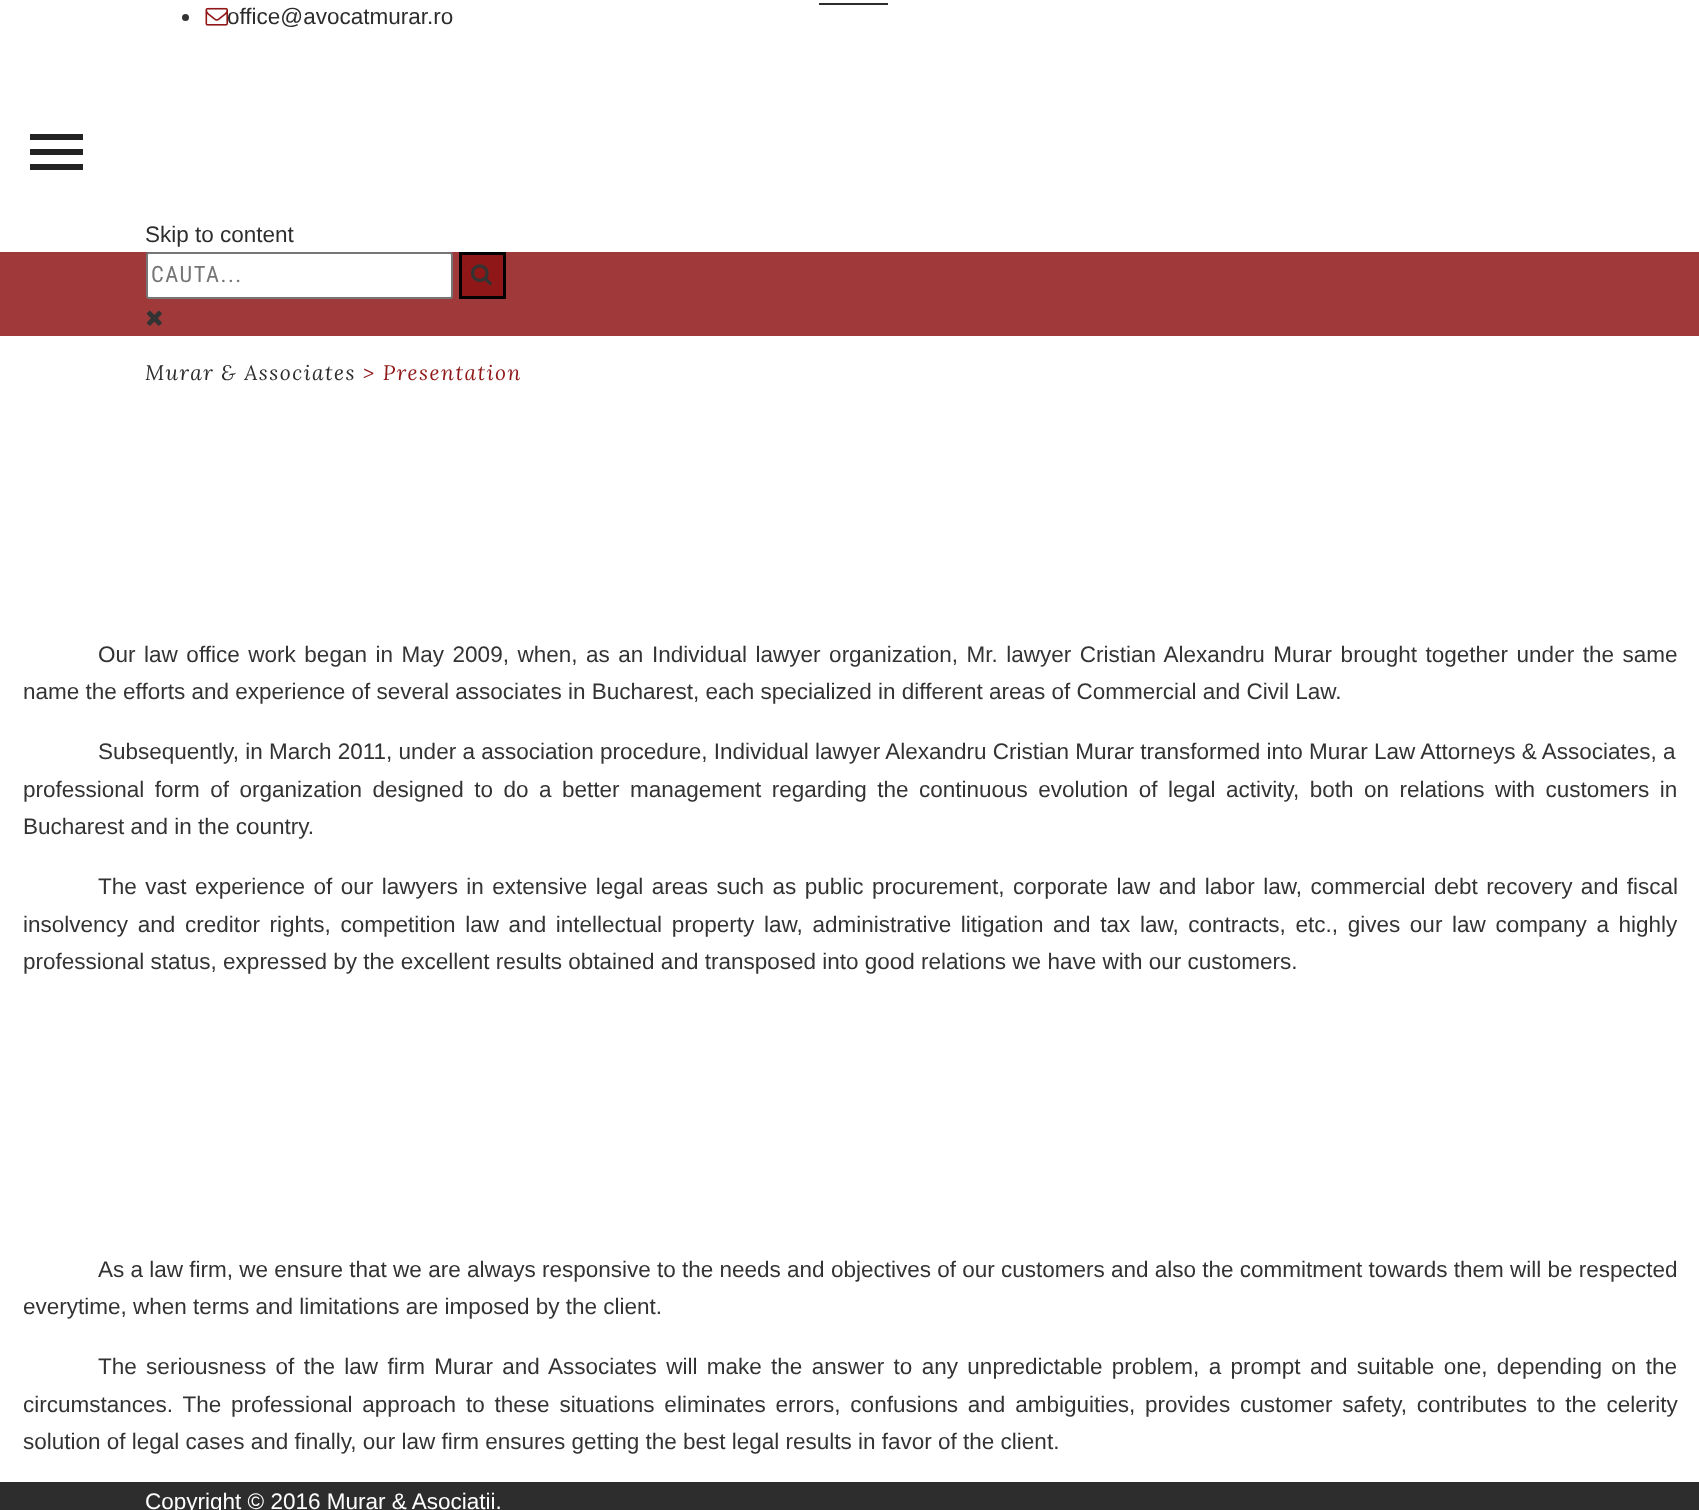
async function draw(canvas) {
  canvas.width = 1699
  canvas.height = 1510
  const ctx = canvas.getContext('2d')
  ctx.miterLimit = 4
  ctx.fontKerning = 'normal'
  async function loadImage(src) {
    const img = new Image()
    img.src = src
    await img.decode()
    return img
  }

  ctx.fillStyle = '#fff'
  ctx.fillRect(0, 0, 1699, 1510)
  ctx.fillStyle = '#2d2d2d'
  ctx.fillRect(819, 3, 69, 2)
  ctx.fillStyle = '#333'
  ctx.beginPath()
  ctx.arc(185.5, 17.5, 3.5, 0, 2 * Math.PI)
  ctx.fill()
  ctx.drawImage(await loadImage('image0.png'), 205, 7, 23, 19)
  ctx.font = '22.5px Liberation Sans'
  ctx.fillStyle = '#2d2d2d'
  ctx.fillText('office@avocatmurar.ro', 227, 24)
  ctx.save()
  ctx.beginPath()
  ctx.rect(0, 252, 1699, 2)
  ctx.clip()
  ctx.fillStyle = '#0000000f'
  ctx.filter = 'blur(1px)'
  ctx.beginPath()
  ctx.rect(0, 51, 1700, 203)
  ctx.fill()
  ctx.filter = 'none'
  ctx.restore()
  ctx.fillStyle = '#222'
  ctx.fillRect(30, 149, 53, 6)
  ctx.fillRect(30, 134, 53, 6)
  ctx.fillRect(30, 164, 53, 6)
  ctx.fillStyle = '#2d2d2d'
  ctx.fillText('Skip to content', 145, 242)
  ctx.fillStyle = '#8f1718d9'
  ctx.fillRect(0, 252, 1699, 84)
  ctx.fillStyle = '#fff'
  ctx.beginPath()
  ctx.roundRect(147, 253, 305, 45, 2)
  ctx.fill()
  ctx.strokeStyle = '#767676'
  ctx.lineWidth = 2
  ctx.stroke()
  ctx.letterSpacing = '1.5px'
  ctx.font = '22.5px Roboto Condensed'
  ctx.fillStyle = '#757575'
  ctx.fillText('CAUTA...', 151, 282)
  ctx.fillStyle = '#8f1718'
  ctx.beginPath()
  ctx.rect(460.5, 253.5, 44, 44)
  ctx.fill()
  ctx.strokeStyle = '#000'
  ctx.lineWidth = 3
  ctx.stroke()
  ctx.drawImage(await loadImage('image1.png'), 471, 264, 21, 22)
  ctx.drawImage(await loadImage('image2.png'), 146, 310, 16, 16)
  ctx.font = 'italic 21px Lora'
  ctx.fillStyle = '#2d2d2d'
  ctx.fillText('Murar & Associates', 145, 380)
  ctx.fillStyle = '#8f1718'
  ctx.fillText('> Presentation', 363, 380)
  ctx.letterSpacing = '0px'
  ctx.wordSpacing = '2.3px'
  ctx.font = '22.5px Liberation Sans'
  ctx.fillStyle = '#333'
  ctx.fillText('Our law office work began in May 2009, when, as an Individual lawyer organization, Mr. lawyer Cristian Alexandru Murar brought together under the same', 98, 662)
  ctx.wordSpacing = '0px'
  ctx.fillText('name the efforts and experience of several associates in Bucharest, each specialized in different areas of Commercial and Civil Law.', 23, 699)
  ctx.fillText('Subsequently, in March 2011, under a association procedure, Individual lawyer Alexandru Cristian Murar transformed into Murar Law Attorneys & Associates, a', 98, 759)
  ctx.wordSpacing = '4.2px'
  ctx.fillText('professional form of organization designed to do a better management regarding the continuous evolution of legal activity, both on relations with customers in', 23, 797)
  ctx.wordSpacing = '0px'
  ctx.fillText('Bucharest and in the country.', 23, 834)
  ctx.wordSpacing = '2.2px'
  ctx.fillText('The vast experience of our lawyers in extensive legal areas such as public procurement, corporate law and labor law, commercial debt recovery and fiscal', 98, 894)
  ctx.wordSpacing = '3.4px'
  ctx.fillText('insolvency and creditor rights, competition law and intellectual property law, administrative litigation and tax law, contracts, etc., gives our law company a highly', 23, 932)
  ctx.wordSpacing = '0px'
  ctx.fillText('professional status, expressed by the excellent results obtained and transposed into good relations we have with our customers.', 23, 969)
  ctx.fillText('As a law firm, we ensure that we are always responsive to the needs and objectives of our customers and also the commitment towards them will be respected', 98, 1277)
  ctx.fillText('everytime, when terms and limitations are imposed by the client.', 23, 1314)
  ctx.wordSpacing = '3.1px'
  ctx.fillText('The seriousness of the law firm Murar and Associates will make the answer to any unpredictable problem, a prompt and suitable one, depending on the', 98, 1374)
  ctx.wordSpacing = '3.6px'
  ctx.fillText('circumstances. The professional approach to these situations eliminates errors, confusions and ambiguities, provides customer safety, contributes to the celerity', 23, 1412)
  ctx.wordSpacing = '0px'
  ctx.fillText('solution of legal cases and finally, our law firm ensures getting the best legal results in favor of the client.', 23, 1449)
  ctx.fillStyle = '#2d2d2d'
  ctx.fillRect(0, 1482, 1699, 28)
  ctx.fillStyle = '#fff'
  ctx.fillText('Copyright © 2016 Murar & Asociatii.', 145, 1509)
}

draw(document.querySelector('canvas'))
